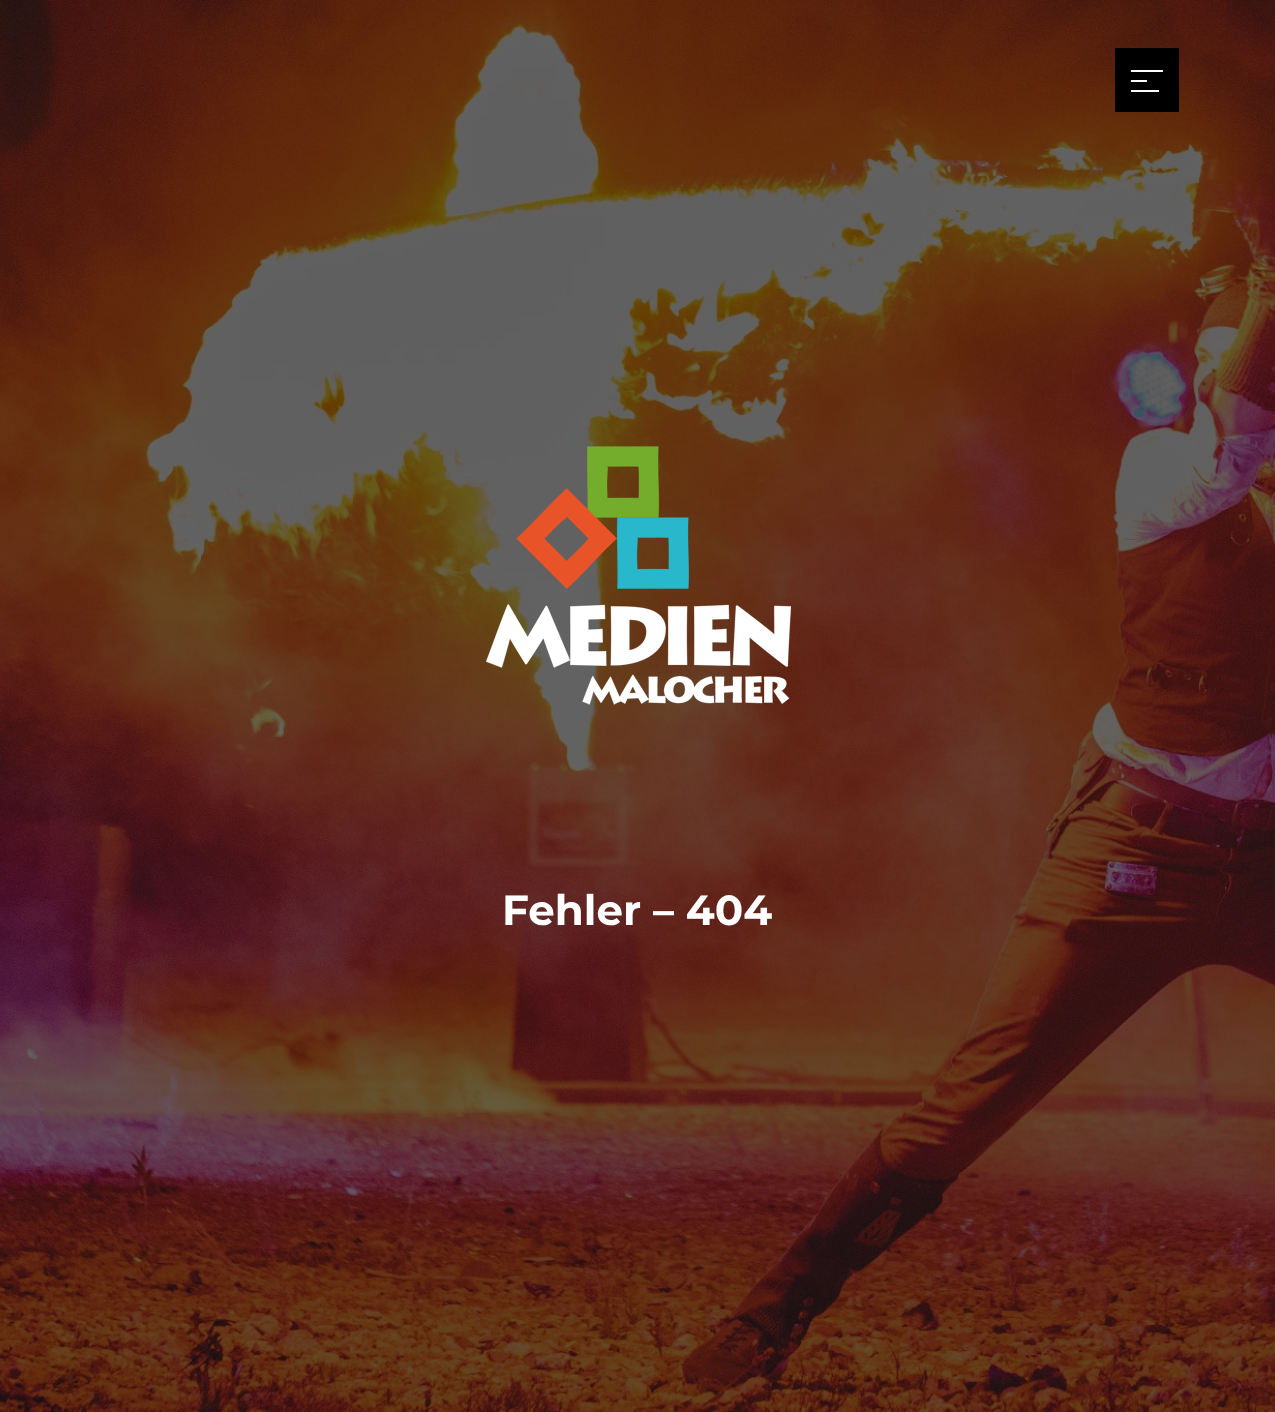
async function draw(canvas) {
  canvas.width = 1275
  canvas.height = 1412
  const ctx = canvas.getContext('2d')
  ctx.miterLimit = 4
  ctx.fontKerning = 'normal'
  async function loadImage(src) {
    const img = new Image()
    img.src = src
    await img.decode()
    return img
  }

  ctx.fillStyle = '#fff'
  ctx.fillRect(0, 0, 1275, 1412)
  ctx.drawImage(await loadImage('image0.png'), 0, 0, 1275, 1412)
  ctx.fillStyle = '#000'
  ctx.fillRect(1115, 48, 64, 64)
  ctx.fillStyle = '#fff'
  ctx.fillRect(1131, 70, 32, 2)
  ctx.fillRect(1131, 80, 16, 2)
  ctx.fillRect(1131, 90, 28, 2)
  ctx.drawImage(await loadImage('image1.png'), 486, 446, 305, 259)
  ctx.font = 'bold 42px Montserrat'
  ctx.fillText('Fehler – 404', 502, 925)
}

draw(document.querySelector('canvas'))
